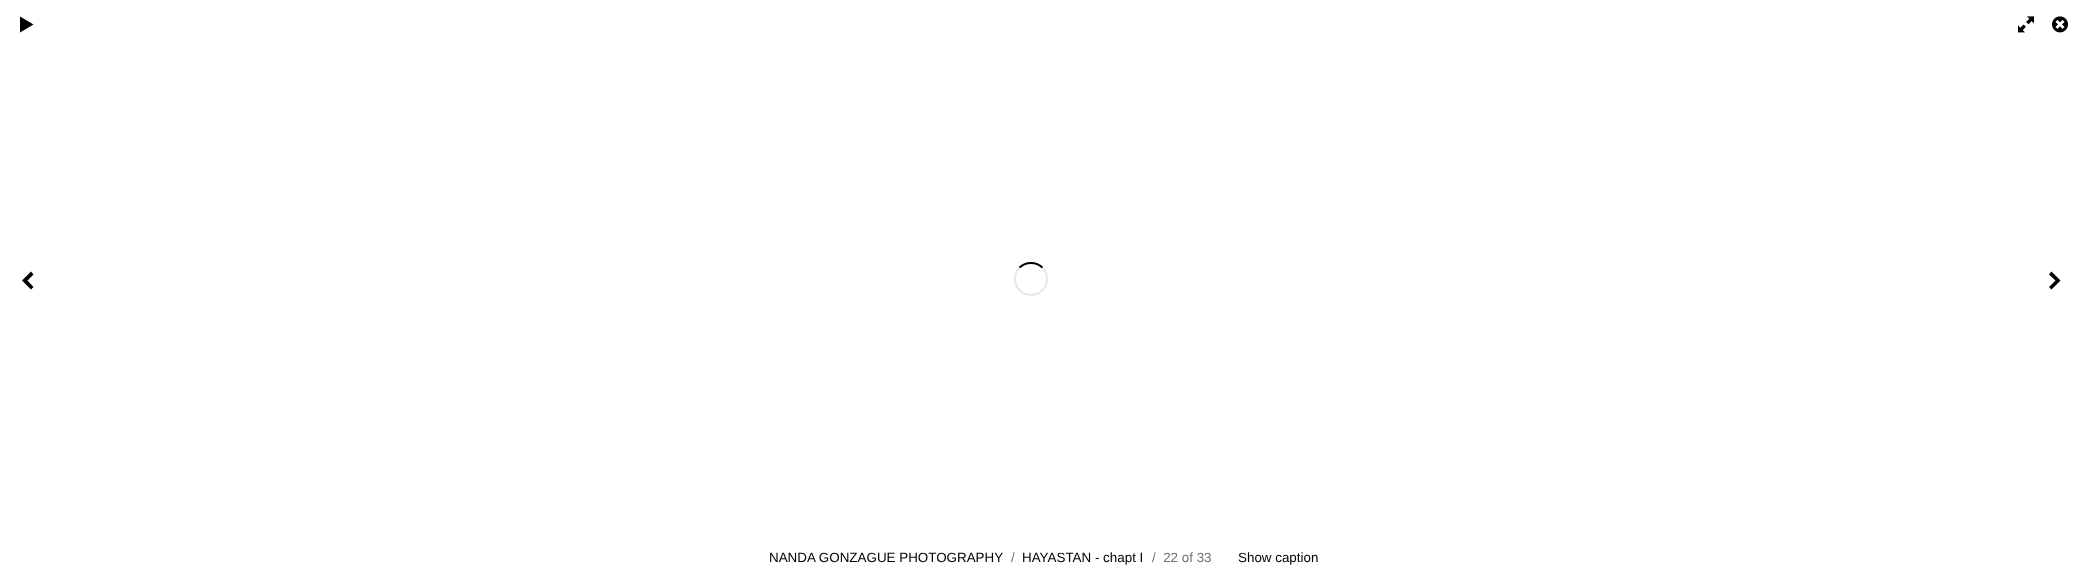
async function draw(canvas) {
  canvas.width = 2087
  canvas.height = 580
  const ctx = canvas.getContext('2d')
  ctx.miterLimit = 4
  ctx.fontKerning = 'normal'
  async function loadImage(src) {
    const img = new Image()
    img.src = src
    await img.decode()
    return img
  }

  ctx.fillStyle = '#fff'
  ctx.fillRect(0, 0, 2087, 580)
  ctx.fillStyle = '#000'
  ctx.beginPath()
  ctx.moveTo(20, 32.5)
  ctx.lineTo(20, 16.5)
  ctx.lineTo(33.5, 24.5)
  ctx.closePath()
  ctx.fill()
  ctx.drawImage(await loadImage('image0.png'), 2018, 16, 16, 17)
  ctx.drawImage(await loadImage('image1.png'), 2052, 16, 16, 17)
  ctx.beginPath()
  ctx.moveTo(22, 280.5)
  ctx.lineTo(31, 271.5)
  ctx.lineTo(33.5, 274.5)
  ctx.lineTo(27.5, 280.5)
  ctx.lineTo(33.5, 287)
  ctx.lineTo(31, 289.5)
  ctx.closePath()
  ctx.fill()
  ctx.beginPath()
  ctx.arc(1031, 279, 16, 0, 2 * Math.PI)
  ctx.strokeStyle = '#e6e6e6'
  ctx.lineWidth = 2
  ctx.stroke()
  ctx.beginPath()
  ctx.moveTo(1019.5, 267.5)
  ctx.bezierCurveTo(1026, 261.5, 1036, 261.5, 1042.5, 267.5)
  ctx.strokeStyle = '#000'
  ctx.stroke()
  ctx.beginPath()
  ctx.moveTo(2049, 287)
  ctx.lineTo(2055.5, 280.5)
  ctx.lineTo(2049, 274.5)
  ctx.lineTo(2051.5, 271.5)
  ctx.lineTo(2060.5, 280.5)
  ctx.lineTo(2051.5, 289.5)
  ctx.closePath()
  ctx.fill()
  ctx.font = '13.4px Liberation Sans'
  ctx.fillText('NANDA GONZAGUE PHOTOGRAPHY', 769, 562)
  ctx.fillStyle = '#707070'
  ctx.fillText('/', 1011, 562)
  ctx.fillStyle = '#000'
  ctx.fillText('HAYASTAN - chapt I', 1022, 562)
  ctx.fillStyle = '#707070'
  ctx.fillText('/  22 of 33', 1152, 562)
  ctx.fillStyle = '#000'
  ctx.fillText('Show caption', 1238, 562)
}

draw(document.querySelector('canvas'))
